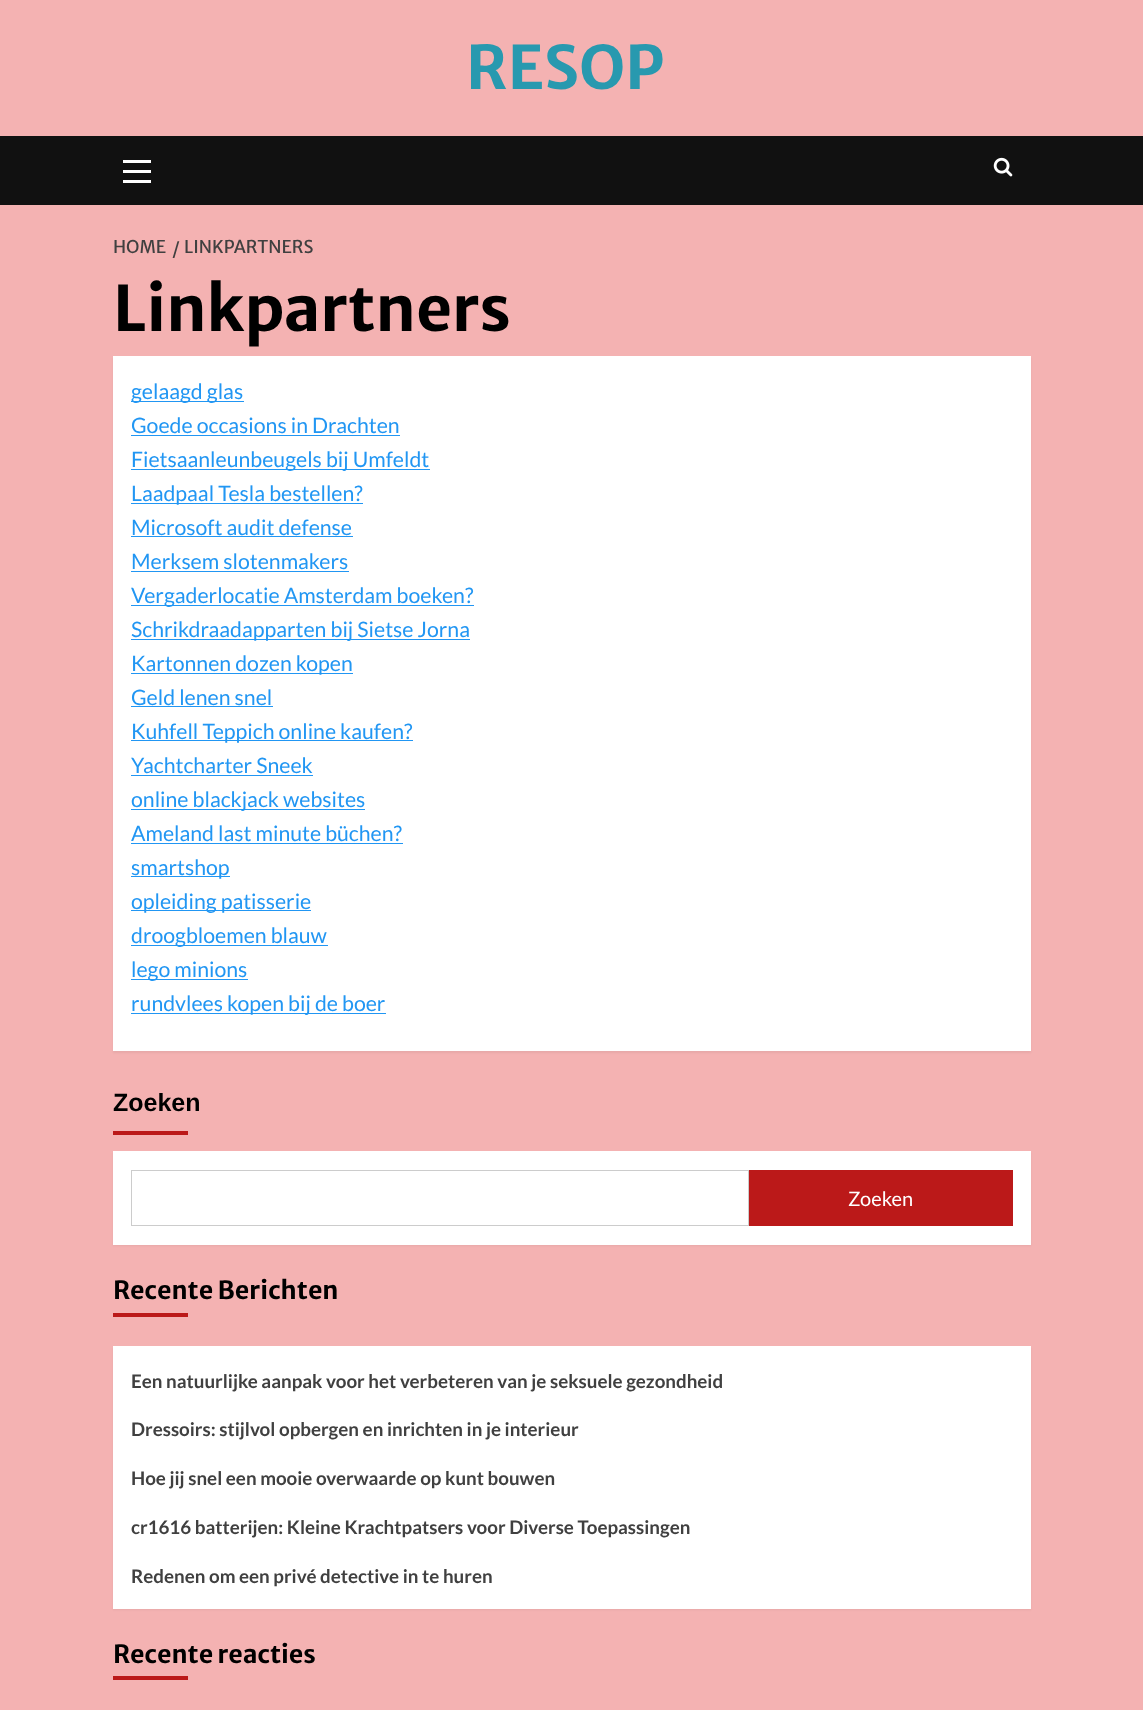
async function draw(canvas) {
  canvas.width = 1143
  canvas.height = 1710
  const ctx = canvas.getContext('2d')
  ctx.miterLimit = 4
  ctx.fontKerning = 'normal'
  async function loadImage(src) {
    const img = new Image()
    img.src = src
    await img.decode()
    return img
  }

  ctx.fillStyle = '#f4b2b2'
  ctx.fillRect(0, 0, 1143, 1710)
  ctx.font = 'bold 60px Merriweather Sans'
  ctx.fillStyle = '#2899af'
  ctx.fillText('RESOP', 466, 89)
  ctx.fillStyle = '#111'
  ctx.fillRect(0, 136, 1143, 69)
  ctx.fillStyle = '#fff'
  ctx.fillRect(123, 170, 28, 3)
  ctx.fillRect(123, 160, 28, 3)
  ctx.fillRect(123, 180, 28, 3)
  ctx.drawImage(await loadImage('image0.png'), 993, 157, 20, 20)
  ctx.font = '17.5px Merriweather Sans'
  ctx.fillStyle = '#404040'
  ctx.fillText('HOME', 113, 253)
  ctx.fillText('/', 172, 255)
  ctx.fillText('LINKPARTNERS', 184, 253)
  ctx.font = 'bold 62.5px Merriweather Sans'
  ctx.fillStyle = '#000'
  ctx.fillText('Linkpartners', 113, 331)
  ctx.fillStyle = '#0000000d'
  ctx.filter = 'blur(1px)'
  ctx.beginPath()
  ctx.rect(113, 358, 918, 695)
  ctx.fill()
  ctx.filter = 'none'
  ctx.fillStyle = '#fff'
  ctx.fillRect(113, 356, 918, 695)
  ctx.fillStyle = '#2196f3'
  ctx.fillRect(131, 401, 113, 1)
  ctx.font = '21.25px Lato'
  ctx.fillText('gelaagd glas', 131, 399)
  ctx.fillText('Goede occasions in Drachten', 131, 433)
  ctx.fillRect(131, 435, 269, 1)
  ctx.fillRect(131, 469, 299, 1)
  ctx.fillText('Fietsaanleunbeugels bij Umfeldt', 131, 467)
  ctx.fillRect(131, 503, 232, 1)
  ctx.fillText('Laadpaal Tesla bestellen?', 131, 501)
  ctx.fillText('Microsoft audit defense', 131, 535)
  ctx.fillRect(131, 536, 222, 1)
  ctx.fillText('Merksem slotenmakers', 131, 569)
  ctx.fillRect(131, 571, 218, 1)
  ctx.fillRect(131, 605, 343, 1)
  ctx.fillText('Vergaderlocatie Amsterdam boeken?', 131, 603)
  ctx.fillRect(131, 639, 339, 1)
  ctx.fillText('Schrikdraadapparten bij Sietse Jorna', 131, 637)
  ctx.fillRect(131, 673, 222, 1)
  ctx.fillText('Kartonnen dozen kopen', 131, 671)
  ctx.fillText('Geld lenen snel', 131, 705)
  ctx.fillRect(131, 706, 142, 1)
  ctx.fillRect(131, 740, 282, 1)
  ctx.fillText('Kuhfell Teppich online kaufen?', 131, 739)
  ctx.fillText('Yachtcharter Sneek', 131, 773)
  ctx.fillRect(131, 775, 182, 1)
  ctx.fillRect(131, 809, 234, 1)
  ctx.fillText('online blackjack websites', 131, 807)
  ctx.fillText('Ameland last minute büchen?', 131, 841)
  ctx.fillRect(131, 843, 272, 1)
  ctx.fillRect(131, 876, 99, 1)
  ctx.fillText('smartshop', 131, 875)
  ctx.fillRect(131, 910, 180, 1)
  ctx.fillText('opleiding patisserie', 131, 909)
  ctx.fillRect(131, 945, 197, 1)
  ctx.fillText('droogbloemen blauw', 131, 943)
  ctx.fillRect(131, 979, 117, 1)
  ctx.fillText('lego minions', 131, 977)
  ctx.fillRect(131, 1013, 255, 1)
  ctx.fillText('rundvlees kopen bij de boer', 131, 1011)
  ctx.font = 'bold 25px Liberation Sans'
  ctx.fillStyle = '#000'
  ctx.fillText('Zoeken', 113, 1111)
  ctx.fillStyle = '#bb1919'
  ctx.fillRect(113, 1131, 75, 4)
  ctx.fillStyle = '#0000000d'
  ctx.filter = 'blur(1px)'
  ctx.beginPath()
  ctx.rect(113, 1153, 918, 93)
  ctx.fill()
  ctx.filter = 'none'
  ctx.fillStyle = '#fff'
  ctx.fillRect(113, 1151, 918, 94)
  ctx.strokeStyle = '#ccc'
  ctx.strokeRect(131.5, 1170.5, 617, 55)
  ctx.fillStyle = '#bb1919'
  ctx.fillRect(749, 1170, 264, 56)
  ctx.font = '20px Lato'
  ctx.fillStyle = '#fff'
  ctx.fillText('Zoeken', 848, 1206)
  ctx.font = 'bold 25px Merriweather Sans'
  ctx.fillStyle = '#000'
  ctx.fillText('Recente Berichten', 113, 1299)
  ctx.fillStyle = '#bb1919'
  ctx.fillRect(113, 1313, 75, 4)
  ctx.fillStyle = '#0000000d'
  ctx.filter = 'blur(1px)'
  ctx.beginPath()
  ctx.rect(113, 1348, 918, 262)
  ctx.fill()
  ctx.filter = 'none'
  ctx.fillStyle = '#fff'
  ctx.fillRect(113, 1346, 918, 263)
  ctx.font = 'bold 18.75px Lato'
  ctx.fillStyle = '#404040'
  ctx.fillText('Een natuurlijke aanpak voor het verbeteren van je seksuele gezondheid', 131, 1388)
  ctx.fillText('Dressoirs: stijlvol opbergen en inrichten in je interieur', 131, 1436)
  ctx.fillText('Hoe jij snel een mooie overwaarde op kunt bouwen', 131, 1485)
  ctx.fillText('cr1616 batterijen: Kleine Krachtpatsers voor Diverse Toepassingen', 131, 1534)
  ctx.fillText('Redenen om een privé detective in te huren', 131, 1583)
  ctx.font = 'bold 25px Merriweather Sans'
  ctx.fillStyle = '#000'
  ctx.fillText('Recente reacties', 113, 1663)
  ctx.fillStyle = '#bb1919'
  ctx.fillRect(113, 1676, 75, 4)
}

draw(document.querySelector('canvas'))
